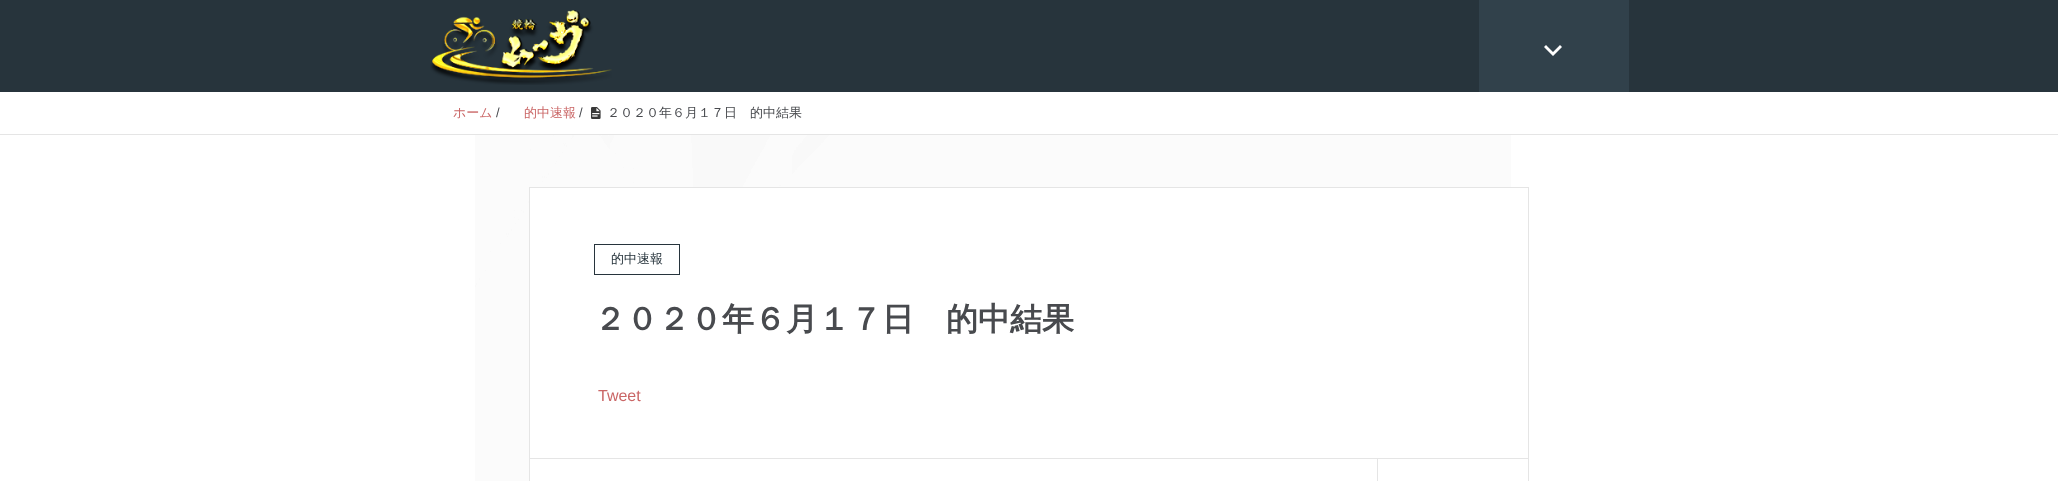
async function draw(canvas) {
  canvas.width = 2058
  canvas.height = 481
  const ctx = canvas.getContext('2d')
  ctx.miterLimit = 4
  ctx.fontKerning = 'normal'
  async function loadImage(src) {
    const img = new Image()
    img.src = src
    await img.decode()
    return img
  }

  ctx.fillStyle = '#fff'
  ctx.fillRect(0, 0, 2058, 481)
  ctx.drawImage(await loadImage('image0.png'), 475, 135, 1036, 346)
  ctx.fillStyle = '#27343c'
  ctx.fillRect(0, 0, 2058, 92)
  ctx.drawImage(await loadImage('image1.png'), 430, 10, 182, 75)
  ctx.fillStyle = '#31414b'
  ctx.fillRect(1479, 0, 150, 92)
  ctx.fillStyle = '#fff'
  ctx.beginPath()
  ctx.moveTo(1546, 45)
  ctx.lineTo(1553, 52)
  ctx.lineTo(1560, 45)
  ctx.lineTo(1562, 47)
  ctx.lineTo(1553, 56)
  ctx.lineTo(1544, 47)
  ctx.closePath()
  ctx.fill()
  ctx.fillStyle = '#e5e5e5'
  ctx.fillRect(0, 134, 2058, 1)
  ctx.font = '500 13px WenQuanYi Zen Hei'
  ctx.fillStyle = '#ca6666'
  ctx.fillText('ホーム', 453, 117)
  ctx.font = '13px Liberation Sans'
  ctx.fillStyle = '#484a4e'
  ctx.fillText('/', 496, 117)
  ctx.font = '500 13px WenQuanYi Zen Hei'
  ctx.fillStyle = '#ca6666'
  ctx.fillText('的中速報', 524, 117)
  ctx.font = '13px Liberation Sans'
  ctx.fillStyle = '#484a4e'
  ctx.fillText('/', 579, 117)
  ctx.drawImage(await loadImage('image2.png'), 591, 107, 10, 12)
  ctx.font = '500 13px WenQuanYi Zen Hei'
  ctx.fillText('２０２０年６月１７日　的中結果', 607, 117)
  ctx.fillStyle = '#fff'
  ctx.fillRect(530, 188, 981, 293)
  ctx.strokeStyle = '#e5e5e5'
  ctx.strokeRect(529.5, 187.5, 999, 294)
  ctx.fillStyle = '#e5e5e5'
  ctx.fillRect(530, 458, 998, 1)
  ctx.strokeStyle = '#27343c'
  ctx.strokeRect(594.5, 244.5, 85, 30)
  ctx.fillStyle = '#27343c'
  ctx.fillText('的中速報', 611, 263)
  ctx.font = 'bold 32px WenQuanYi Zen Hei'
  ctx.fillStyle = '#484a4e'
  ctx.fillText('２０２０年６月１７日　的中結果', 594, 330)
  ctx.font = '16px Liberation Sans'
  ctx.fillStyle = '#ca6666'
  ctx.fillText('Tweet', 598, 401)
  ctx.fillStyle = '#e5e5e5'
  ctx.fillRect(1377, 459, 1, 22)
}

draw(document.querySelector('canvas'))
